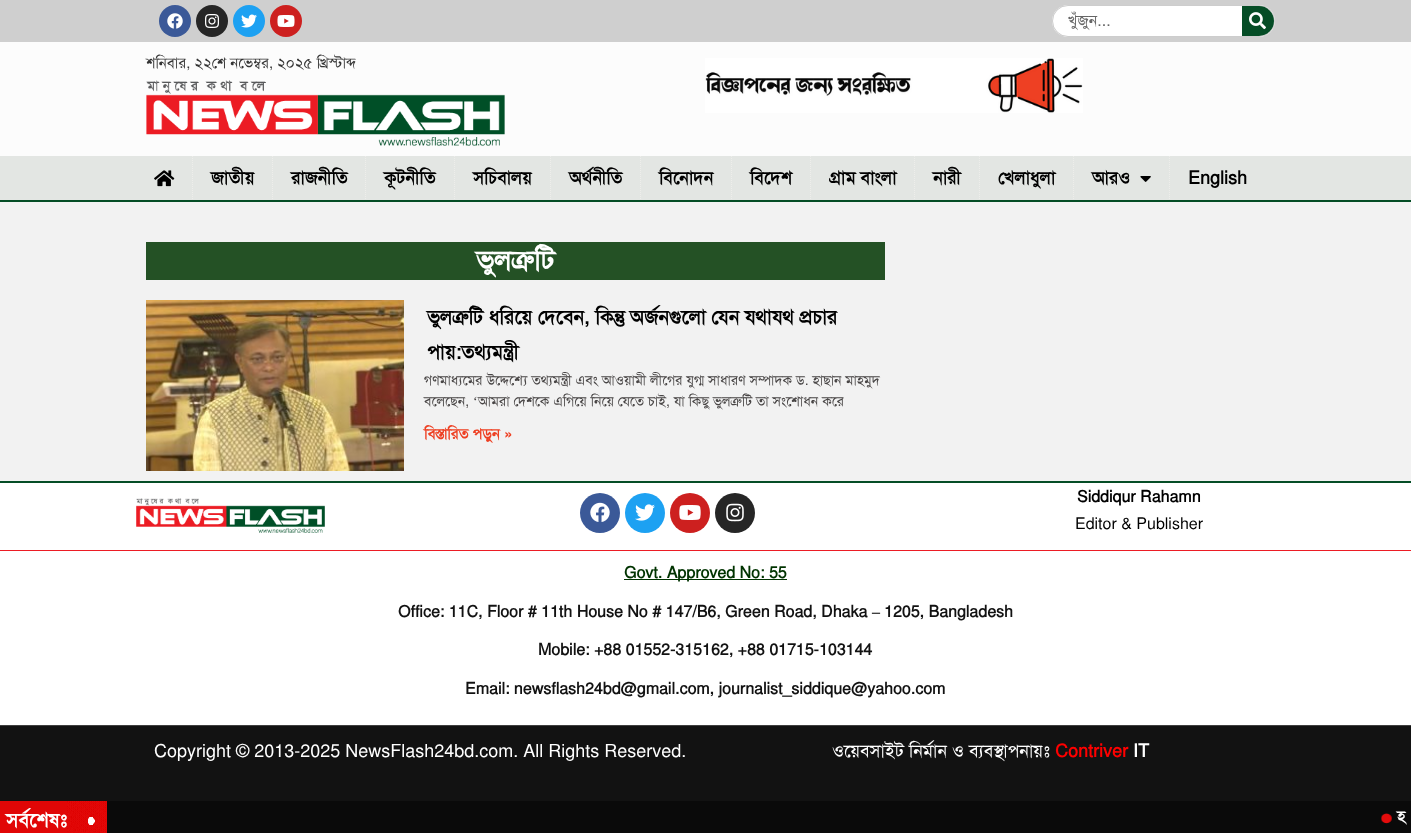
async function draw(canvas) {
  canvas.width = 1411
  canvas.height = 833
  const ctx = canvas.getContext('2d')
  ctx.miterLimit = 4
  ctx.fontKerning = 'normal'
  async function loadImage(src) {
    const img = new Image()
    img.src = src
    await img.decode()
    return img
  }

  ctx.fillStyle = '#f2f2f2'
  ctx.fillRect(0, 0, 1411, 833)
  ctx.fillStyle = '#cfcfcf'
  ctx.fillRect(0, 0, 1411, 42)
  ctx.fillStyle = '#3b5998'
  ctx.beginPath()
  ctx.arc(175, 21, 16, 0, 2 * Math.PI)
  ctx.fill()
  ctx.drawImage(await loadImage('image0.png'), 167, 13, 16, 16)
  ctx.fillStyle = '#262626'
  ctx.beginPath()
  ctx.arc(212, 21, 16, 0, 2 * Math.PI)
  ctx.fill()
  ctx.drawImage(await loadImage('image1.png'), 205, 14, 14, 14)
  ctx.fillStyle = '#1da1f2'
  ctx.beginPath()
  ctx.arc(249, 21, 16, 0, 2 * Math.PI)
  ctx.fill()
  ctx.drawImage(await loadImage('image2.png'), 241, 14, 16, 14)
  ctx.fillStyle = '#cd201f'
  ctx.beginPath()
  ctx.arc(286, 21, 16, 0, 2 * Math.PI)
  ctx.fill()
  ctx.drawImage(await loadImage('image3.png'), 277, 15, 18, 12)
  ctx.fillStyle = '#fff'
  ctx.beginPath()
  ctx.roundRect(1052, 5, 223, 32, 16)
  ctx.fill()
  ctx.beginPath()
  ctx.roundRect(1052.5, 5.5, 222, 31, 15.5)
  ctx.strokeStyle = '#06060633'
  ctx.stroke()
  ctx.save()
  ctx.beginPath()
  ctx.rect(1063, 11, 153, 21)
  ctx.clip()
  ctx.font = '16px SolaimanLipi'
  ctx.fillStyle = '#666'
  ctx.fillText('খুঁজুন...', 1068, 26)
  ctx.restore()
  ctx.fillStyle = '#054d26'
  ctx.beginPath()
  ctx.roundRect(1242, 6, 32, 30, [0, 15, 15, 0])
  ctx.fill()
  ctx.drawImage(await loadImage('image4.png'), 1249, 12, 17, 18)
  ctx.fillStyle = '#fcfcfc'
  ctx.fillRect(0, 42, 1411, 114)
  ctx.font = '15px SolaimanLipi'
  ctx.fillStyle = '#333'
  ctx.fillText('শনিবার, ২২শে নভেম্বর, ২০২৫ খ্রিস্টাব্দ', 146, 68)
  ctx.drawImage(await loadImage('image5.png'), 146, 80, 359, 66)
  ctx.drawImage(await loadImage('image6.png'), 705, 58, 378, 55)
  ctx.fillStyle = '#e3e6e3'
  ctx.fillRect(0, 156, 1411, 44)
  ctx.fillStyle = '#054d26'
  ctx.fillRect(0, 200, 1411, 2)
  ctx.drawImage(await loadImage('image7.png'), 154, 170, 21, 17)
  ctx.beginPath()
  ctx.moveTo(192.5, 156)
  ctx.lineTo(192.5, 200)
  ctx.strokeStyle = '#eeeeeb'
  ctx.setLineDash([1, 1])
  ctx.stroke()
  ctx.font = 'bold 18px SolaimanLipi'
  ctx.fillStyle = '#000'
  ctx.fillText('জাতীয়', 211, 184)
  ctx.beginPath()
  ctx.moveTo(272.5, 156)
  ctx.lineTo(272.5, 200)
  ctx.stroke()
  ctx.fillText('রাজনীতি', 291, 184)
  ctx.beginPath()
  ctx.moveTo(365.5, 156)
  ctx.lineTo(365.5, 200)
  ctx.stroke()
  ctx.fillText('কূটনীতি', 384, 184)
  ctx.beginPath()
  ctx.moveTo(454.5, 156)
  ctx.lineTo(454.5, 200)
  ctx.stroke()
  ctx.fillText('সচিবালয়', 473, 184)
  ctx.beginPath()
  ctx.moveTo(550.5, 156)
  ctx.lineTo(550.5, 200)
  ctx.stroke()
  ctx.fillText('অর্থনীতি', 569, 184)
  ctx.beginPath()
  ctx.moveTo(640.5, 156)
  ctx.lineTo(640.5, 200)
  ctx.stroke()
  ctx.fillText('বিনোদন', 659, 184)
  ctx.beginPath()
  ctx.moveTo(731.5, 156)
  ctx.lineTo(731.5, 200)
  ctx.stroke()
  ctx.fillText('বিদেশ', 750, 184)
  ctx.beginPath()
  ctx.moveTo(810.5, 156)
  ctx.lineTo(810.5, 200)
  ctx.stroke()
  ctx.fillText('গ্রাম বাংলা', 829, 184)
  ctx.beginPath()
  ctx.moveTo(914.5, 156)
  ctx.lineTo(914.5, 200)
  ctx.stroke()
  ctx.fillText('নারী', 933, 184)
  ctx.beginPath()
  ctx.moveTo(979.5, 156)
  ctx.lineTo(979.5, 200)
  ctx.stroke()
  ctx.fillText('খেলাধুলা', 998, 184)
  ctx.beginPath()
  ctx.moveTo(1073.5, 156)
  ctx.lineTo(1073.5, 200)
  ctx.stroke()
  ctx.fillText('আরও', 1092, 184)
  ctx.drawImage(await loadImage('image8.png'), 1140, 176, 11, 6)
  ctx.beginPath()
  ctx.moveTo(1169.5, 156)
  ctx.lineTo(1169.5, 200)
  ctx.stroke()
  ctx.fillText('English', 1188, 184)
  ctx.fillStyle = '#245125'
  ctx.fillRect(146, 242, 739, 38)
  ctx.font = 'bold 28px SolaimanLipi'
  ctx.fillStyle = '#fff'
  ctx.fillText('ভুলত্রুটি', 476, 270)
  ctx.drawImage(await loadImage('image9.png'), 146, 300, 258, 171)
  ctx.font = 'bold 20px SolaimanLipi'
  ctx.fillStyle = '#000'
  ctx.fillText('ভুলত্রুটি ধরিয়ে দেবেন, কিন্তু অর্জনগুলো যেন যথাযথ প্রচার', 427, 324)
  ctx.fillText('পায়:তথ্যমন্ত্রী', 427, 359)
  ctx.font = '14px SolaimanLipi'
  ctx.fillStyle = '#484545'
  ctx.fillText('গণমাধ্যমের উদ্দেশ্যে তথ্যমন্ত্রী এবং আওয়ামী লীগের যুগ্ম সাধারণ সম্পাদক ড. হাছান মাহমুদ', 424, 385)
  ctx.fillText('বলেছেন,', 424, 406)
  ctx.font = '14px Liberation Serif'
  ctx.fillText('‘', 473, 406)
  ctx.font = '14px SolaimanLipi'
  ctx.fillText('আমরা দেশকে এগিয়ে নিয়ে যেতে চাই, যা কিছু ভুলত্রুটি তা সংশোধন করে', 478, 406)
  ctx.font = 'bold 15px SolaimanLipi'
  ctx.fillStyle = '#ee4023'
  ctx.fillText('বিস্তারিত পড়ুন »', 424, 439)
  ctx.fillStyle = '#fff'
  ctx.fillRect(0, 483, 1411, 67)
  ctx.fillStyle = '#054d26'
  ctx.fillRect(0, 481, 1411, 2)
  ctx.drawImage(await loadImage('image10.png'), 136, 498, 189, 35)
  ctx.fillStyle = '#3b5998'
  ctx.beginPath()
  ctx.arc(600, 513, 20, 0, 2 * Math.PI)
  ctx.fill()
  ctx.drawImage(await loadImage('image11.png'), 590, 502, 20, 20)
  ctx.fillStyle = '#1da1f2'
  ctx.beginPath()
  ctx.arc(645, 513, 20, 0, 2 * Math.PI)
  ctx.fill()
  ctx.drawImage(await loadImage('image12.png'), 635, 504, 20, 17)
  ctx.fillStyle = '#cd201f'
  ctx.beginPath()
  ctx.arc(690, 513, 20, 0, 2 * Math.PI)
  ctx.fill()
  ctx.drawImage(await loadImage('image13.png'), 679, 505, 22, 15)
  ctx.fillStyle = '#262626'
  ctx.beginPath()
  ctx.arc(735, 513, 20, 0, 2 * Math.PI)
  ctx.fill()
  ctx.drawImage(await loadImage('image14.png'), 726, 503, 18, 19)
  ctx.font = 'bold 16px SolaimanLipi'
  ctx.fillStyle = '#000'
  ctx.fillText('Siddiqur Rahamn', 1077, 502)
  ctx.font = '16px SolaimanLipi'
  ctx.fillText('Editor & Publisher', 1075, 529)
  ctx.fillStyle = '#fff'
  ctx.fillRect(0, 551, 1411, 174)
  ctx.fillStyle = '#ec1c24'
  ctx.fillRect(0, 550, 1411, 1)
  ctx.fillStyle = '#030'
  ctx.fillRect(624, 579, 163, 1)
  ctx.font = 'bold 16px SolaimanLipi'
  ctx.fillText('Govt. Approved No: 55', 624, 578)
  ctx.fillStyle = '#121212'
  ctx.fillText('Office: 11C, Floor # 11th House No # 147/B6, Green Road, Dhaka', 398, 617)
  ctx.font = 'bold 16px Liberation Serif'
  ctx.fillText('–', 872, 617)
  ctx.font = 'bold 16px SolaimanLipi'
  ctx.fillText('1205, Bangladesh', 884, 617)
  ctx.fillText('Mobile: +88 01552-315162, +88 01715-103144', 538, 655)
  ctx.fillText('Email: newsflash24bd@gmail.com, journalist_siddique@yahoo.com', 465, 694)
  ctx.fillRect(0, 726, 1411, 75)
  ctx.fillStyle = '#3f3f3f'
  ctx.fillRect(0, 725, 1411, 1)
  ctx.font = '18px SolaimanLipi'
  ctx.fillStyle = '#fff'
  ctx.fillText('Copyright © 2013-2025 NewsFlash24bd.com. All Rights Reserved.', 154, 757)
  ctx.fillText('ওয়েবসাইট নির্মান ও ব্যবস্থাপনায়ঃ', 832, 757)
  ctx.font = 'bold 18px SolaimanLipi'
  ctx.fillStyle = '#f00'
  ctx.fillText('Contriver', 1055, 757)
  ctx.fillStyle = '#fff'
  ctx.fillText('IT', 1133, 757)
  ctx.fillStyle = '#0a0a0a'
  ctx.fillRect(107, 801, 1304, 32)
  ctx.fillStyle = '#e10606'
  ctx.fillRect(0, 801, 107, 32)
  ctx.drawImage(await loadImage('image15.png'), 67, 801, 39, 32)
  ctx.font = 'bold 20px SolaimanLipi'
  ctx.fillStyle = '#fff'
  ctx.fillText('সর্বশেষঃ', 6, 827)
  ctx.drawImage(await loadImage('image16.png'), 1381, 813, 11, 11)
  ctx.font = 'bold 16px SolaimanLipi'
  ctx.fillText('হ', 1397, 822)
}

draw(document.querySelector('canvas'))
